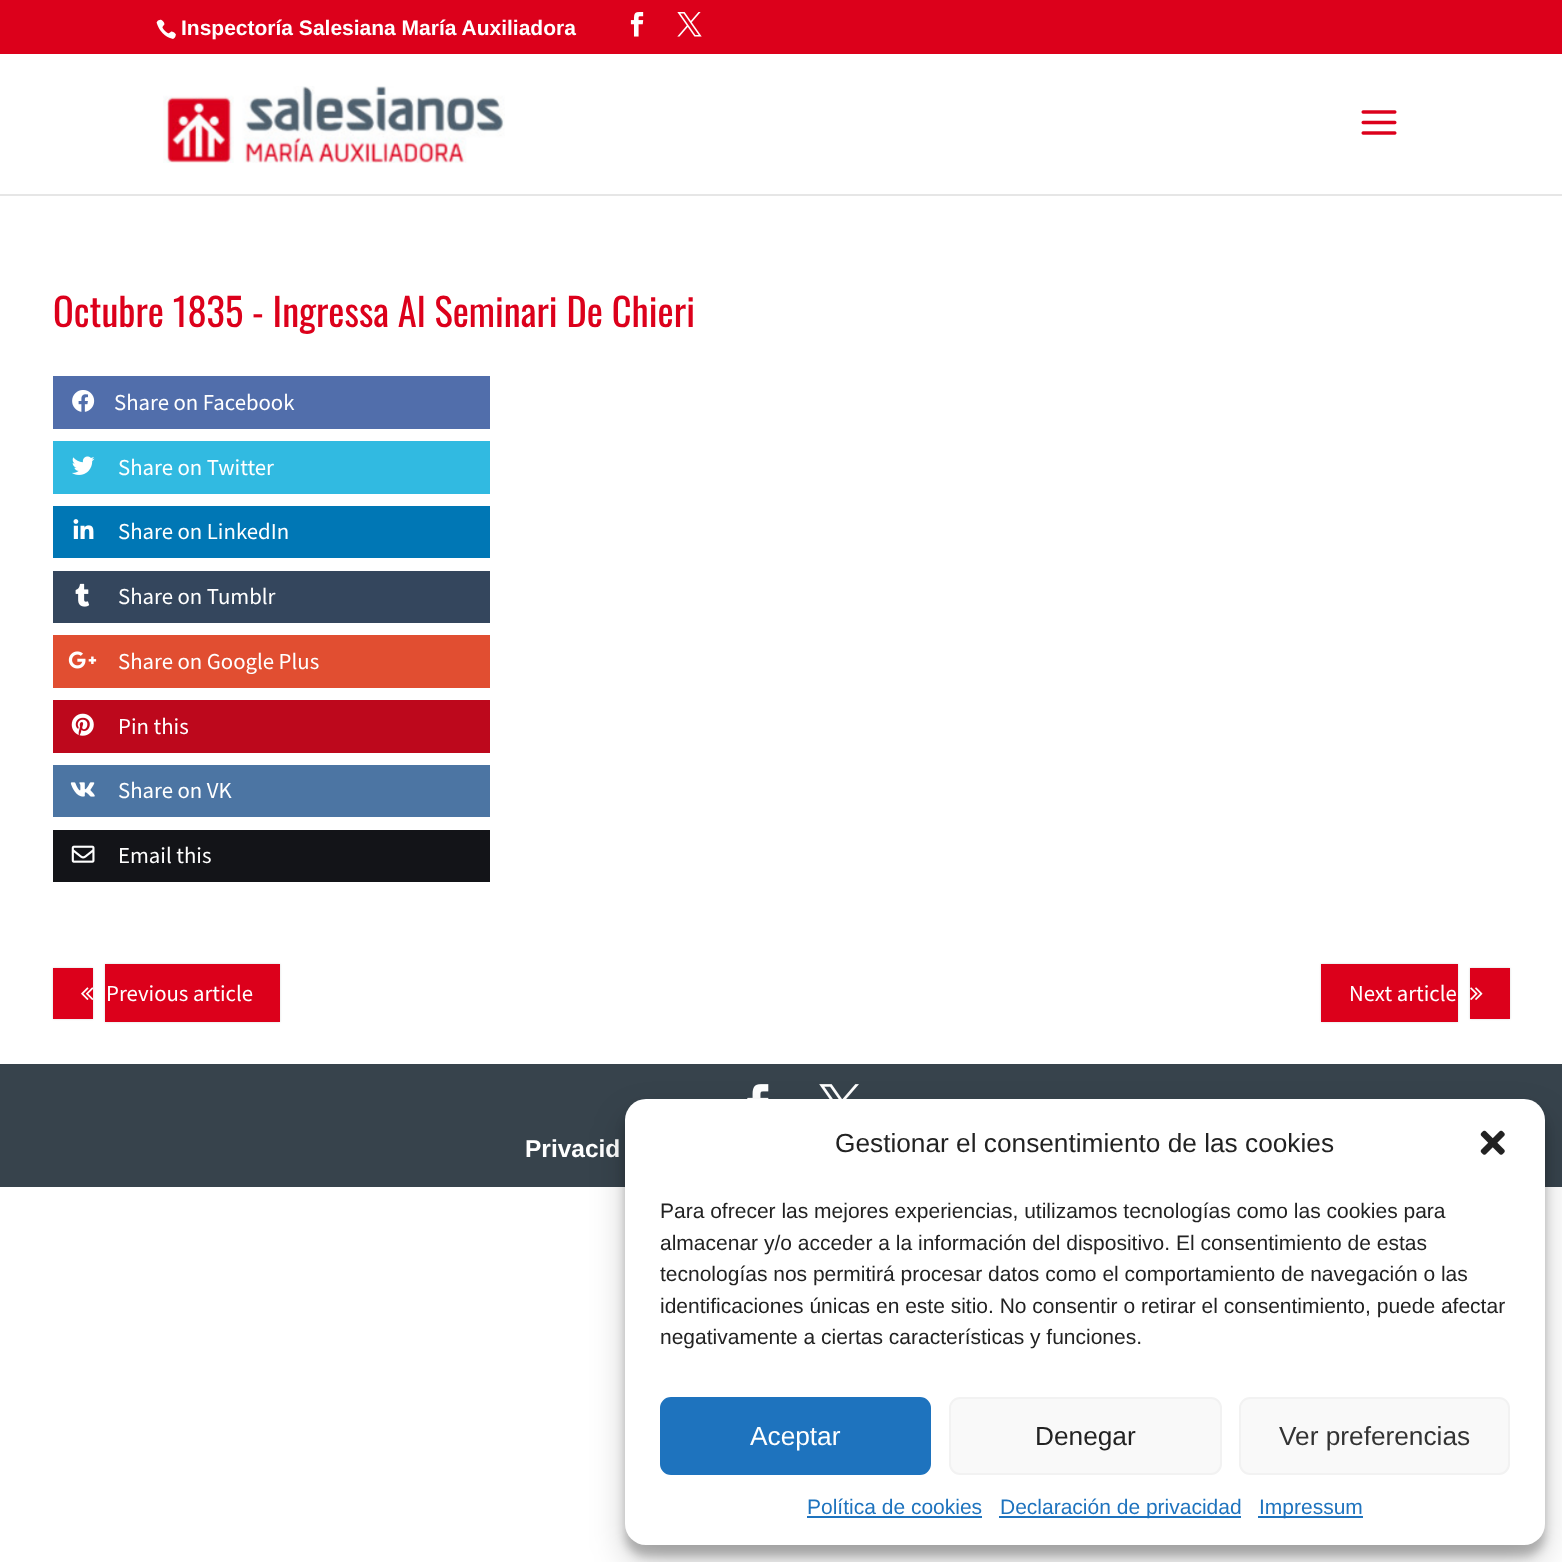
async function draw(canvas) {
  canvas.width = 1562
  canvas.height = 1562
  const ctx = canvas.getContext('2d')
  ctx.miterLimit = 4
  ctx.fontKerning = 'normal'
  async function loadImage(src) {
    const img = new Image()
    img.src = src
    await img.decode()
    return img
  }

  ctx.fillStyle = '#fff'
  ctx.fillRect(0, 0, 1562, 1562)
  ctx.fillStyle = '#dc001b'
  ctx.fillRect(0, 0, 1562, 54)
  ctx.drawImage(await loadImage('image0.png'), 156, 19, 20, 20)
  ctx.font = 'bold 21px Liberation Sans'
  ctx.fillStyle = '#fff'
  ctx.fillText('Inspectoría Salesiana María Auxiliadora', 181, 35)
  ctx.drawImage(await loadImage('image1.png'), 630, 12, 14, 25)
  ctx.drawImage(await loadImage('image2.png'), 677, 12, 25, 25)
  ctx.fillStyle = '#e6e6e6'
  ctx.beginPath()
  ctx.moveTo(0, 194)
  ctx.lineTo(0, 196)
  ctx.lineTo(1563, 196)
  ctx.lineTo(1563, 56)
  ctx.lineTo(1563, 194)
  ctx.closePath()
  ctx.fill()
  ctx.drawImage(await loadImage('image3.png'), 163, 86, 342, 77)
  ctx.drawImage(await loadImage('image4.png'), 1361, 110, 36, 25)
  ctx.font = '38.5px Oswald'
  ctx.fillStyle = '#dc001b'
  ctx.fillText('Octubre 1835 - Ingressa Al Seminari De Chieri', 53, 327)
  ctx.fillStyle = '#516eab'
  ctx.fillRect(53, 376, 437, 53)
  ctx.drawImage(await loadImage('image5.png'), 72, 390, 23, 22)
  ctx.font = '22.75px Source Sans Pro'
  ctx.fillStyle = '#fff'
  ctx.fillText('Share on Facebook', 114, 410)
  ctx.fillStyle = '#31bae1'
  ctx.fillRect(53, 441, 437, 53)
  ctx.drawImage(await loadImage('image6.png'), 72, 456, 23, 19)
  ctx.fillStyle = '#fff'
  ctx.fillText('Share on Twitter', 118, 475)
  ctx.fillStyle = '#0077b5'
  ctx.fillRect(53, 506, 437, 52)
  ctx.drawImage(await loadImage('image7.png'), 73, 519, 21, 20)
  ctx.fillStyle = '#fff'
  ctx.fillText('Share on LinkedIn', 118, 539)
  ctx.fillStyle = '#34465d'
  ctx.fillRect(53, 571, 437, 52)
  ctx.drawImage(await loadImage('image8.png'), 75, 583, 15, 24)
  ctx.fillStyle = '#fff'
  ctx.fillText('Share on Tumblr', 118, 604)
  ctx.fillStyle = '#e14e31'
  ctx.fillRect(53, 635, 437, 53)
  ctx.drawImage(await loadImage('image9.png'), 68, 651, 29, 18)
  ctx.fillStyle = '#fff'
  ctx.fillText('Share on Google Plus', 118, 669)
  ctx.fillStyle = '#bd081c'
  ctx.fillRect(53, 700, 437, 53)
  ctx.drawImage(await loadImage('image10.png'), 71, 713, 23, 23)
  ctx.fillStyle = '#fff'
  ctx.fillText('Pin this', 118, 734)
  ctx.fillStyle = '#4c75a3'
  ctx.fillRect(53, 765, 437, 52)
  ctx.drawImage(await loadImage('image11.png'), 70, 782, 25, 15)
  ctx.fillStyle = '#fff'
  ctx.fillText('Share on VK', 118, 798)
  ctx.fillStyle = '#131418'
  ctx.fillRect(53, 830, 437, 52)
  ctx.drawImage(await loadImage('image12.png'), 71, 845, 24, 18)
  ctx.fillStyle = '#fff'
  ctx.fillText('Email this', 118, 863)
  ctx.fillStyle = '#00000026'
  ctx.filter = 'blur(1px)'
  ctx.beginPath()
  ctx.rect(53, 968, 40, 51)
  ctx.fill()
  ctx.filter = 'none'
  ctx.fillStyle = '#dc001b'
  ctx.fillRect(53, 968, 40, 51)
  ctx.drawImage(await loadImage('image13.png'), 81, 987, 12, 13)
  ctx.fillStyle = '#00000026'
  ctx.filter = 'blur(1px)'
  ctx.beginPath()
  ctx.rect(105, 964, 175, 58)
  ctx.fill()
  ctx.filter = 'none'
  ctx.fillStyle = '#dc001b'
  ctx.fillRect(105, 964, 175, 58)
  ctx.fillStyle = '#fff'
  ctx.fillText('Previous article', 106, 1001)
  ctx.fillStyle = '#00000026'
  ctx.filter = 'blur(1px)'
  ctx.beginPath()
  ctx.rect(1321, 964, 137, 58)
  ctx.fill()
  ctx.filter = 'none'
  ctx.fillStyle = '#dc001b'
  ctx.fillRect(1321, 964, 137, 58)
  ctx.fillStyle = '#fff'
  ctx.fillText('Next article', 1349, 1001)
  ctx.fillStyle = '#00000026'
  ctx.filter = 'blur(1px)'
  ctx.beginPath()
  ctx.rect(1470, 968, 40, 51)
  ctx.fill()
  ctx.filter = 'none'
  ctx.fillStyle = '#dc001b'
  ctx.fillRect(1470, 968, 40, 51)
  ctx.drawImage(await loadImage('image14.png'), 1470, 987, 13, 13)
  ctx.fillStyle = '#37434c'
  ctx.fillRect(0, 1064, 1562, 123)
  ctx.drawImage(await loadImage('image15.png'), 747, 1084, 22, 15)
  ctx.drawImage(await loadImage('image16.png'), 819, 1084, 40, 15)
  ctx.font = 'bold 24.5px Liberation Sans'
  ctx.fillStyle = '#fff'
  ctx.fillText('Privacid', 525, 1157)
  ctx.fillStyle = '#0000003b'
  ctx.filter = 'blur(5px)'
  ctx.beginPath()
  ctx.roundRect(625, 1110, 920, 446, 21)
  ctx.fill()
  ctx.filter = 'none'
  ctx.fillStyle = '#00000030'
  ctx.filter = 'blur(17.5px)'
  ctx.beginPath()
  ctx.roundRect(625, 1117, 920, 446, 21)
  ctx.fill()
  ctx.filter = 'none'
  ctx.fillStyle = '#fff'
  ctx.beginPath()
  ctx.roundRect(625, 1099, 920, 446, 21)
  ctx.fill()
  ctx.font = '26.25px Liberation Sans'
  ctx.fillStyle = '#222'
  ctx.fillText('Gestionar el consentimiento de las cookies', 835, 1152)
  ctx.drawImage(await loadImage('image17.png'), 1480, 1130, 25, 25)
  ctx.font = '21px Liberation Sans'
  ctx.fillText('Para ofrecer las mejores experiencias, utilizamos tecnologías como las cookies para', 660, 1218)
  ctx.fillText('almacenar y/o acceder a la información del dispositivo. El consentimiento de estas', 660, 1250)
  ctx.fillText('tecnologías nos permitirá procesar datos como el comportamiento de navegación o las', 660, 1281)
  ctx.fillText('identificaciones únicas en este sitio. No consentir o retirar el consentimiento, puede afectar', 660, 1313)
  ctx.fillText('negativamente a ciertas características y funciones.', 660, 1344)
  ctx.fillStyle = '#1e73be'
  ctx.beginPath()
  ctx.roundRect(661, 1398, 269, 76, 10)
  ctx.fill()
  ctx.strokeStyle = '#1e73be'
  ctx.lineWidth = 2
  ctx.stroke()
  ctx.font = '26.25px Liberation Sans'
  ctx.fillStyle = '#fff'
  ctx.fillText('Aceptar', 750, 1445)
  ctx.fillStyle = '#f9f9f9'
  ctx.beginPath()
  ctx.roundRect(950, 1398, 271, 76, 10)
  ctx.fill()
  ctx.strokeStyle = '#f2f2f2'
  ctx.stroke()
  ctx.fillStyle = '#222'
  ctx.fillText('Denegar', 1035, 1445)
  ctx.fillStyle = '#f9f9f9'
  ctx.beginPath()
  ctx.roundRect(1240, 1398, 269, 76, 10)
  ctx.fill()
  ctx.stroke()
  ctx.fillStyle = '#333'
  ctx.fillText('Ver preferencias', 1279, 1445)
  ctx.font = '21px Liberation Sans'
  ctx.fillStyle = '#1e73be'
  ctx.fillText('Política de cookies', 807, 1514)
  ctx.fillRect(807, 1516, 175, 2)
  ctx.fillRect(999, 1516, 242, 2)
  ctx.fillText('Declaración de privacidad', 1000, 1514)
  ctx.fillRect(1258, 1516, 105, 2)
  ctx.fillText('Impressum', 1259, 1514)
}

draw(document.querySelector('canvas'))
